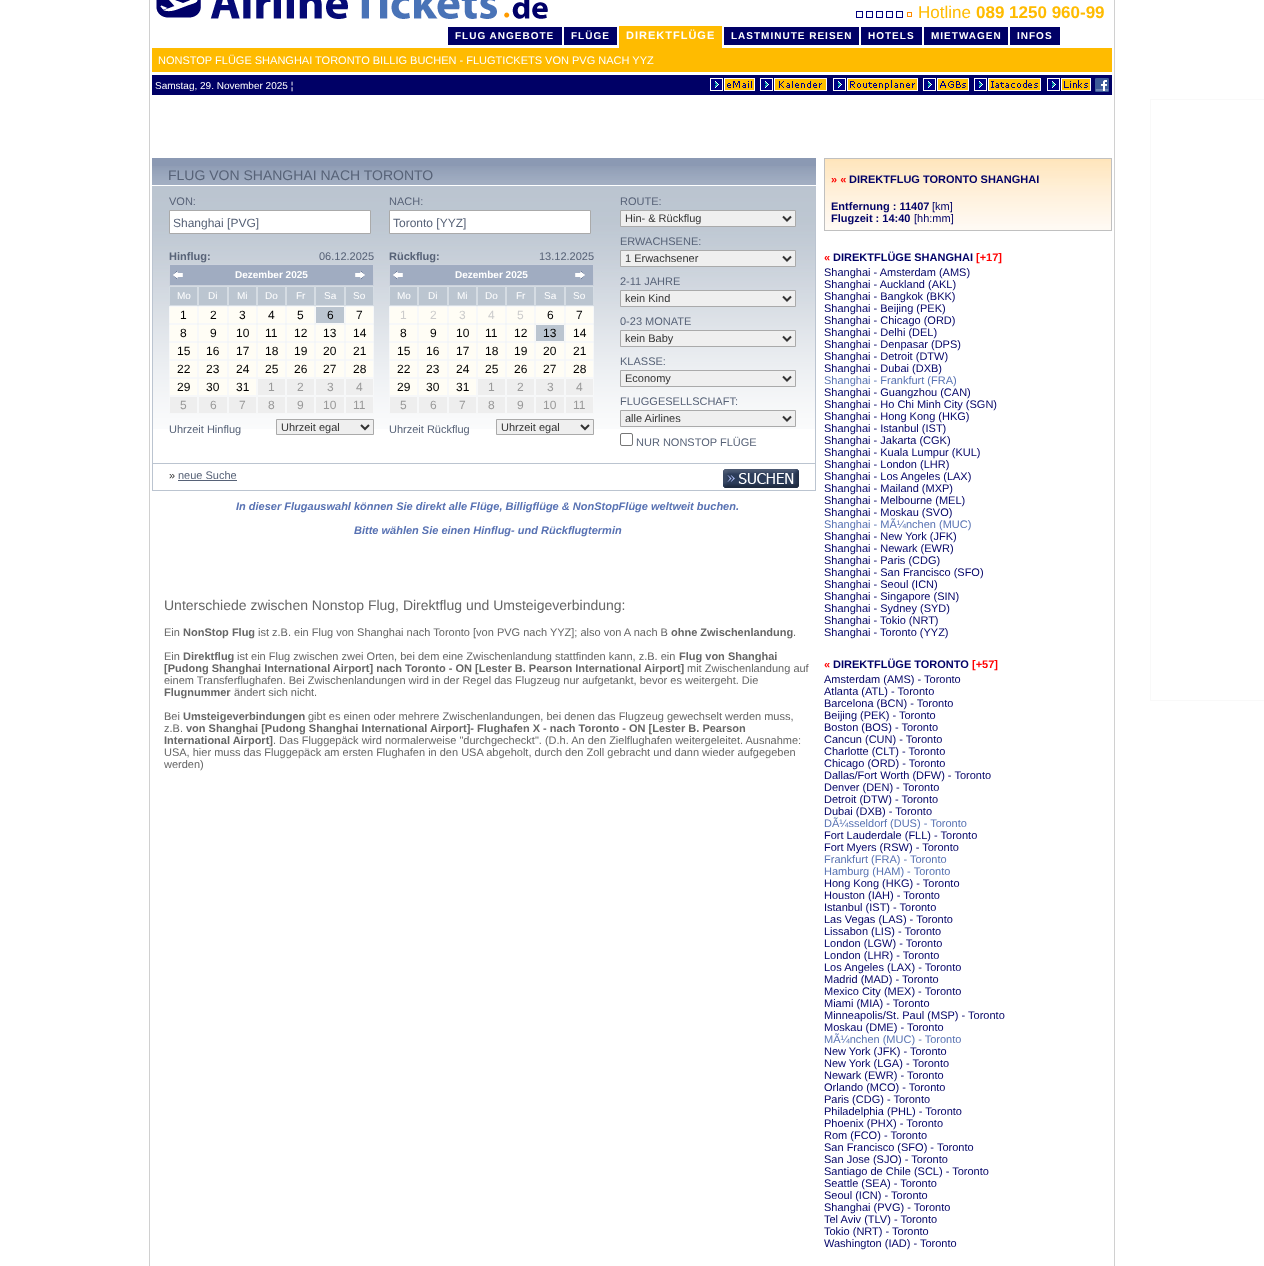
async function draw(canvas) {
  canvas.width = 1264
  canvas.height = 1266
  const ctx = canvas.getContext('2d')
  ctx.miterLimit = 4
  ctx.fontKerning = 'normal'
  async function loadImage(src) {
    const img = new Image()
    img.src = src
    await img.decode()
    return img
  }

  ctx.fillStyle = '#fff'
  ctx.fillRect(0, 0, 1264, 1266)
  ctx.strokeStyle = '#d0d0d0'
  ctx.strokeRect(149.5, -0.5, 965, 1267)
  ctx.drawImage(await loadImage('image0.png'), 156, 0, 392, 19)
  ctx.drawImage(await loadImage('image1.png'), 856, 11, 56, 7)
  ctx.font = '17px Liberation Sans'
  ctx.fillStyle = '#fb0'
  ctx.fillText('Hotline', 918, 18)
  ctx.font = 'bold 17px Liberation Sans'
  ctx.fillText('089 1250 960-99', 976, 18)
  ctx.fillStyle = '#006'
  ctx.fillRect(448, 27, 114, 18)
  ctx.letterSpacing = '1px'
  ctx.font = 'bold 10px Liberation Sans'
  ctx.fillStyle = '#fff'
  ctx.fillText('FLUG ANGEBOTE', 455, 39)
  ctx.fillStyle = '#006'
  ctx.fillRect(564, 27, 53, 18)
  ctx.fillStyle = '#fff'
  ctx.fillText('FLÜGE', 571, 39)
  ctx.fillStyle = '#fb0'
  ctx.fillRect(619, 26, 103, 22)
  ctx.font = 'bold 11px Liberation Sans'
  ctx.fillStyle = '#fff'
  ctx.fillText('DIREKTFLÜGE', 626, 39)
  ctx.fillStyle = '#006'
  ctx.fillRect(724, 27, 135, 18)
  ctx.font = 'bold 10px Liberation Sans'
  ctx.fillStyle = '#fff'
  ctx.fillText('LASTMINUTE REISEN', 731, 39)
  ctx.fillStyle = '#006'
  ctx.fillRect(861, 27, 61, 18)
  ctx.fillStyle = '#fff'
  ctx.fillText('HOTELS', 868, 39)
  ctx.fillStyle = '#006'
  ctx.fillRect(924, 27, 84, 18)
  ctx.fillStyle = '#fff'
  ctx.fillText('MIETWAGEN', 931, 39)
  ctx.fillStyle = '#006'
  ctx.fillRect(1010, 27, 50, 18)
  ctx.fillStyle = '#fff'
  ctx.fillText('INFOS', 1017, 39)
  ctx.fillStyle = '#fb0'
  ctx.fillRect(152, 48, 960, 24)
  ctx.letterSpacing = '0px'
  ctx.font = '11px Liberation Sans'
  ctx.fillStyle = '#fff'
  ctx.fillText('NONSTOP FLÜGE SHANGHAI TORONTO BILLIG BUCHEN - FLUGTICKETS VON PVG NACH YYZ', 158, 64)
  ctx.fillStyle = '#006'
  ctx.fillRect(152, 75, 960, 20)
  ctx.font = '10px Liberation Sans'
  ctx.fillStyle = '#fff'
  ctx.fillText('Samstag, 29. November 2025 ¦', 155, 89)
  ctx.drawImage(await loadImage('image2.png'), 710, 78, 45, 13)
  ctx.drawImage(await loadImage('image3.png'), 760, 78, 67, 13)
  ctx.drawImage(await loadImage('image4.png'), 833, 78, 85, 13)
  ctx.drawImage(await loadImage('image5.png'), 923, 78, 46, 13)
  ctx.drawImage(await loadImage('image6.png'), 974, 78, 67, 13)
  ctx.drawImage(await loadImage('image7.png'), 1047, 78, 44, 13)
  ctx.drawImage(await loadImage('image8.png'), 1095, 78, 14, 14)
  ctx.fillStyle = '#8b99b3'
  ctx.fillRect(152, 158, 664, 8)
  ctx.drawImage(await loadImage('image9.png'), 152, 166, 664, 19)
  ctx.font = '14px Liberation Sans'
  ctx.fillStyle = '#576277'
  ctx.fillText('FLUG VON SHANGHAI NACH TORONTO', 168, 180)
  ctx.drawImage(await loadImage('image10.png'), 153, 187, 662, 242)
  ctx.fillStyle = '#bbc4d0'
  ctx.fillRect(152, 186, 664, 1)
  ctx.fillRect(815, 186, 1, 277)
  ctx.fillRect(152, 186, 1, 277)
  ctx.font = '11px Liberation Sans'
  ctx.fillStyle = '#576277'
  ctx.fillText('VON:', 169, 205)
  ctx.fillStyle = '#fff'
  ctx.beginPath()
  ctx.rect(169.5, 210.5, 201, 23)
  ctx.fill()
  ctx.strokeStyle = '#aaa'
  ctx.stroke()
  ctx.font = '12px Liberation Sans'
  ctx.fillStyle = '#576277'
  ctx.fillText('Shanghai [PVG]', 173, 227)
  ctx.font = 'bold 11px Liberation Sans'
  ctx.fillText('Hinflug:', 169, 260)
  ctx.font = '11px Liberation Sans'
  ctx.fillText('06.12.2025', 319, 260)
  ctx.fillStyle = '#a0acc1'
  ctx.beginPath()
  ctx.rect(169.5, 264.5, 204, 21)
  ctx.fill()
  ctx.strokeStyle = '#ccd2dc'
  ctx.stroke()
  ctx.drawImage(await loadImage('image11.png'), 173, 271, 10, 8)
  ctx.font = 'bold 10px Liberation Sans'
  ctx.fillStyle = '#fff'
  ctx.fillText('Dezember 2025', 235, 278)
  ctx.drawImage(await loadImage('image12.png'), 355, 271, 10, 8)
  ctx.fillStyle = '#bbc5d0'
  ctx.beginPath()
  ctx.rect(169.5, 286.5, 28, 19)
  ctx.fill()
  ctx.strokeStyle = '#d5dce3'
  ctx.stroke()
  ctx.font = '10px Liberation Sans'
  ctx.fillStyle = '#fff'
  ctx.fillText('Mo', 177, 299)
  ctx.fillStyle = '#bbc5d0'
  ctx.beginPath()
  ctx.rect(198.5, 286.5, 29, 19)
  ctx.fill()
  ctx.stroke()
  ctx.fillStyle = '#fff'
  ctx.fillText('Di', 208, 299)
  ctx.fillStyle = '#bbc5d0'
  ctx.beginPath()
  ctx.rect(228.5, 286.5, 28, 19)
  ctx.fill()
  ctx.stroke()
  ctx.fillStyle = '#fff'
  ctx.fillText('Mi', 237, 299)
  ctx.fillStyle = '#bbc5d0'
  ctx.beginPath()
  ctx.rect(257.5, 286.5, 28, 19)
  ctx.fill()
  ctx.stroke()
  ctx.fillStyle = '#fff'
  ctx.fillText('Do', 265, 299)
  ctx.fillStyle = '#bbc5d0'
  ctx.beginPath()
  ctx.rect(286.5, 286.5, 28, 19)
  ctx.fill()
  ctx.stroke()
  ctx.fillStyle = '#fff'
  ctx.fillText('Fr', 296, 299)
  ctx.fillStyle = '#bbc5d0'
  ctx.beginPath()
  ctx.rect(315.5, 286.5, 29, 19)
  ctx.fill()
  ctx.stroke()
  ctx.fillStyle = '#fff'
  ctx.fillText('Sa', 324, 299)
  ctx.fillStyle = '#bbc5d0'
  ctx.beginPath()
  ctx.rect(345.5, 286.5, 28, 19)
  ctx.fill()
  ctx.stroke()
  ctx.fillStyle = '#fff'
  ctx.fillText('So', 353, 299)
  ctx.fillStyle = '#fffdf5'
  ctx.beginPath()
  ctx.rect(169.5, 306.5, 28, 17)
  ctx.fill()
  ctx.strokeStyle = '#f7f8f9'
  ctx.stroke()
  ctx.font = '12px Liberation Sans'
  ctx.fillStyle = '#000'
  ctx.fillText('1', 180, 319)
  ctx.fillStyle = '#fffdf5'
  ctx.beginPath()
  ctx.rect(198.5, 306.5, 29, 17)
  ctx.fill()
  ctx.stroke()
  ctx.fillStyle = '#000'
  ctx.fillText('2', 210, 319)
  ctx.fillStyle = '#fffdf5'
  ctx.beginPath()
  ctx.rect(228.5, 306.5, 28, 17)
  ctx.fill()
  ctx.stroke()
  ctx.fillStyle = '#000'
  ctx.fillText('3', 239, 319)
  ctx.fillStyle = '#fffdf5'
  ctx.beginPath()
  ctx.rect(257.5, 306.5, 28, 17)
  ctx.fill()
  ctx.stroke()
  ctx.fillStyle = '#000'
  ctx.fillText('4', 268, 319)
  ctx.fillStyle = '#fffdf5'
  ctx.beginPath()
  ctx.rect(286.5, 306.5, 28, 17)
  ctx.fill()
  ctx.stroke()
  ctx.fillStyle = '#000'
  ctx.fillText('5', 297, 319)
  ctx.fillStyle = '#bbc5d0'
  ctx.beginPath()
  ctx.rect(315.5, 306.5, 29, 17)
  ctx.fill()
  ctx.stroke()
  ctx.fillStyle = '#000'
  ctx.fillText('6', 327, 319)
  ctx.fillStyle = '#fffdf5'
  ctx.beginPath()
  ctx.rect(345.5, 306.5, 28, 17)
  ctx.fill()
  ctx.stroke()
  ctx.fillStyle = '#000'
  ctx.fillText('7', 356, 319)
  ctx.fillStyle = '#fffdf5'
  ctx.beginPath()
  ctx.rect(169.5, 324.5, 28, 17)
  ctx.fill()
  ctx.stroke()
  ctx.fillStyle = '#000'
  ctx.fillText('8', 180, 337)
  ctx.fillStyle = '#fffdf5'
  ctx.beginPath()
  ctx.rect(198.5, 324.5, 29, 17)
  ctx.fill()
  ctx.stroke()
  ctx.fillStyle = '#000'
  ctx.fillText('9', 210, 337)
  ctx.fillStyle = '#fffdf5'
  ctx.beginPath()
  ctx.rect(228.5, 324.5, 28, 17)
  ctx.fill()
  ctx.stroke()
  ctx.fillStyle = '#000'
  ctx.fillText('10', 236, 337)
  ctx.fillStyle = '#fffdf5'
  ctx.beginPath()
  ctx.rect(257.5, 324.5, 28, 17)
  ctx.fill()
  ctx.stroke()
  ctx.fillStyle = '#000'
  ctx.fillText('11', 265, 337)
  ctx.fillStyle = '#fffdf5'
  ctx.beginPath()
  ctx.rect(286.5, 324.5, 28, 17)
  ctx.fill()
  ctx.stroke()
  ctx.fillStyle = '#000'
  ctx.fillText('12', 294, 337)
  ctx.fillStyle = '#fffdf5'
  ctx.beginPath()
  ctx.rect(315.5, 324.5, 29, 17)
  ctx.fill()
  ctx.stroke()
  ctx.fillStyle = '#000'
  ctx.fillText('13', 323, 337)
  ctx.fillStyle = '#fffdf5'
  ctx.beginPath()
  ctx.rect(345.5, 324.5, 28, 17)
  ctx.fill()
  ctx.stroke()
  ctx.fillStyle = '#000'
  ctx.fillText('14', 353, 337)
  ctx.fillStyle = '#fffdf5'
  ctx.beginPath()
  ctx.rect(169.5, 342.5, 28, 17)
  ctx.fill()
  ctx.stroke()
  ctx.fillStyle = '#000'
  ctx.fillText('15', 177, 355)
  ctx.fillStyle = '#fffdf5'
  ctx.beginPath()
  ctx.rect(198.5, 342.5, 29, 17)
  ctx.fill()
  ctx.stroke()
  ctx.fillStyle = '#000'
  ctx.fillText('16', 206, 355)
  ctx.fillStyle = '#fffdf5'
  ctx.beginPath()
  ctx.rect(228.5, 342.5, 28, 17)
  ctx.fill()
  ctx.stroke()
  ctx.fillStyle = '#000'
  ctx.fillText('17', 236, 355)
  ctx.fillStyle = '#fffdf5'
  ctx.beginPath()
  ctx.rect(257.5, 342.5, 28, 17)
  ctx.fill()
  ctx.stroke()
  ctx.fillStyle = '#000'
  ctx.fillText('18', 265, 355)
  ctx.fillStyle = '#fffdf5'
  ctx.beginPath()
  ctx.rect(286.5, 342.5, 28, 17)
  ctx.fill()
  ctx.stroke()
  ctx.fillStyle = '#000'
  ctx.fillText('19', 294, 355)
  ctx.fillStyle = '#fffdf5'
  ctx.beginPath()
  ctx.rect(315.5, 342.5, 29, 17)
  ctx.fill()
  ctx.stroke()
  ctx.fillStyle = '#000'
  ctx.fillText('20', 323, 355)
  ctx.fillStyle = '#fffdf5'
  ctx.beginPath()
  ctx.rect(345.5, 342.5, 28, 17)
  ctx.fill()
  ctx.stroke()
  ctx.fillStyle = '#000'
  ctx.fillText('21', 353, 355)
  ctx.fillStyle = '#fffdf5'
  ctx.beginPath()
  ctx.rect(169.5, 360.5, 28, 17)
  ctx.fill()
  ctx.stroke()
  ctx.fillStyle = '#000'
  ctx.fillText('22', 177, 373)
  ctx.fillStyle = '#fffdf5'
  ctx.beginPath()
  ctx.rect(198.5, 360.5, 29, 17)
  ctx.fill()
  ctx.stroke()
  ctx.fillStyle = '#000'
  ctx.fillText('23', 206, 373)
  ctx.fillStyle = '#fffdf5'
  ctx.beginPath()
  ctx.rect(228.5, 360.5, 28, 17)
  ctx.fill()
  ctx.stroke()
  ctx.fillStyle = '#000'
  ctx.fillText('24', 236, 373)
  ctx.fillStyle = '#fffdf5'
  ctx.beginPath()
  ctx.rect(257.5, 360.5, 28, 17)
  ctx.fill()
  ctx.stroke()
  ctx.fillStyle = '#000'
  ctx.fillText('25', 265, 373)
  ctx.fillStyle = '#fffdf5'
  ctx.beginPath()
  ctx.rect(286.5, 360.5, 28, 17)
  ctx.fill()
  ctx.stroke()
  ctx.fillStyle = '#000'
  ctx.fillText('26', 294, 373)
  ctx.fillStyle = '#fffdf5'
  ctx.beginPath()
  ctx.rect(315.5, 360.5, 29, 17)
  ctx.fill()
  ctx.stroke()
  ctx.fillStyle = '#000'
  ctx.fillText('27', 323, 373)
  ctx.fillStyle = '#fffdf5'
  ctx.beginPath()
  ctx.rect(345.5, 360.5, 28, 17)
  ctx.fill()
  ctx.stroke()
  ctx.fillStyle = '#000'
  ctx.fillText('28', 353, 373)
  ctx.fillStyle = '#fffdf5'
  ctx.beginPath()
  ctx.rect(169.5, 378.5, 28, 17)
  ctx.fill()
  ctx.stroke()
  ctx.fillStyle = '#000'
  ctx.fillText('29', 177, 391)
  ctx.fillStyle = '#fffdf5'
  ctx.beginPath()
  ctx.rect(198.5, 378.5, 29, 17)
  ctx.fill()
  ctx.stroke()
  ctx.fillStyle = '#000'
  ctx.fillText('30', 206, 391)
  ctx.fillStyle = '#fffdf5'
  ctx.beginPath()
  ctx.rect(228.5, 378.5, 28, 17)
  ctx.fill()
  ctx.stroke()
  ctx.fillStyle = '#000'
  ctx.fillText('31', 236, 391)
  ctx.fillStyle = '#eee'
  ctx.beginPath()
  ctx.rect(257.5, 378.5, 28, 17)
  ctx.fill()
  ctx.stroke()
  ctx.fillStyle = '#999'
  ctx.fillText('1', 268, 391)
  ctx.fillStyle = '#eee'
  ctx.beginPath()
  ctx.rect(286.5, 378.5, 28, 17)
  ctx.fill()
  ctx.stroke()
  ctx.fillStyle = '#999'
  ctx.fillText('2', 297, 391)
  ctx.fillStyle = '#eee'
  ctx.beginPath()
  ctx.rect(315.5, 378.5, 29, 17)
  ctx.fill()
  ctx.stroke()
  ctx.fillStyle = '#999'
  ctx.fillText('3', 327, 391)
  ctx.fillStyle = '#eee'
  ctx.beginPath()
  ctx.rect(345.5, 378.5, 28, 17)
  ctx.fill()
  ctx.stroke()
  ctx.fillStyle = '#999'
  ctx.fillText('4', 356, 391)
  ctx.fillStyle = '#eee'
  ctx.beginPath()
  ctx.rect(169.5, 396.5, 28, 17)
  ctx.fill()
  ctx.stroke()
  ctx.fillStyle = '#999'
  ctx.fillText('5', 180, 409)
  ctx.fillStyle = '#eee'
  ctx.beginPath()
  ctx.rect(198.5, 396.5, 29, 17)
  ctx.fill()
  ctx.stroke()
  ctx.fillStyle = '#999'
  ctx.fillText('6', 210, 409)
  ctx.fillStyle = '#eee'
  ctx.beginPath()
  ctx.rect(228.5, 396.5, 28, 17)
  ctx.fill()
  ctx.stroke()
  ctx.fillStyle = '#999'
  ctx.fillText('7', 239, 409)
  ctx.fillStyle = '#eee'
  ctx.beginPath()
  ctx.rect(257.5, 396.5, 28, 17)
  ctx.fill()
  ctx.stroke()
  ctx.fillStyle = '#999'
  ctx.fillText('8', 268, 409)
  ctx.fillStyle = '#eee'
  ctx.beginPath()
  ctx.rect(286.5, 396.5, 28, 17)
  ctx.fill()
  ctx.stroke()
  ctx.fillStyle = '#999'
  ctx.fillText('9', 297, 409)
  ctx.fillStyle = '#eee'
  ctx.beginPath()
  ctx.rect(315.5, 396.5, 29, 17)
  ctx.fill()
  ctx.stroke()
  ctx.fillStyle = '#999'
  ctx.fillText('10', 323, 409)
  ctx.fillStyle = '#eee'
  ctx.beginPath()
  ctx.rect(345.5, 396.5, 28, 17)
  ctx.fill()
  ctx.stroke()
  ctx.fillStyle = '#999'
  ctx.fillText('11', 353, 409)
  ctx.font = '11px Liberation Sans'
  ctx.fillStyle = '#576277'
  ctx.fillText('Uhrzeit Hinflug', 169, 433)
  ctx.fillStyle = '#efefef'
  ctx.beginPath()
  ctx.rect(276.5, 419.5, 97, 15)
  ctx.fill()
  ctx.strokeStyle = '#aaa'
  ctx.stroke()
  ctx.beginPath()
  ctx.moveTo(361, 425)
  ctx.lineTo(365, 429)
  ctx.lineTo(369, 425)
  ctx.strokeStyle = '#333'
  ctx.lineWidth = 2
  ctx.stroke()
  ctx.fillStyle = '#333'
  ctx.fillText('Uhrzeit egal', 281, 431)
  ctx.fillStyle = '#576277'
  ctx.fillText('NACH:', 389, 205)
  ctx.fillStyle = '#fff'
  ctx.beginPath()
  ctx.rect(389.5, 210.5, 201, 23)
  ctx.fill()
  ctx.strokeStyle = '#aaa'
  ctx.lineWidth = 1
  ctx.stroke()
  ctx.font = '12px Liberation Sans'
  ctx.fillStyle = '#576277'
  ctx.fillText('Toronto [YYZ]', 393, 227)
  ctx.font = 'bold 11px Liberation Sans'
  ctx.fillText('Rückflug:', 389, 260)
  ctx.font = '11px Liberation Sans'
  ctx.fillText('13.12.2025', 539, 260)
  ctx.fillStyle = '#a0acc1'
  ctx.beginPath()
  ctx.rect(389.5, 264.5, 204, 21)
  ctx.fill()
  ctx.strokeStyle = '#ccd2dc'
  ctx.stroke()
  ctx.drawImage(await loadImage('image11.png'), 393, 271, 10, 8)
  ctx.font = 'bold 10px Liberation Sans'
  ctx.fillStyle = '#fff'
  ctx.fillText('Dezember 2025', 455, 278)
  ctx.drawImage(await loadImage('image12.png'), 575, 271, 10, 8)
  ctx.fillStyle = '#bbc5d0'
  ctx.beginPath()
  ctx.rect(389.5, 286.5, 28, 19)
  ctx.fill()
  ctx.strokeStyle = '#d5dce3'
  ctx.stroke()
  ctx.font = '10px Liberation Sans'
  ctx.fillStyle = '#fff'
  ctx.fillText('Mo', 397, 299)
  ctx.fillStyle = '#bbc5d0'
  ctx.beginPath()
  ctx.rect(418.5, 286.5, 29, 19)
  ctx.fill()
  ctx.stroke()
  ctx.fillStyle = '#fff'
  ctx.fillText('Di', 428, 299)
  ctx.fillStyle = '#bbc5d0'
  ctx.beginPath()
  ctx.rect(448.5, 286.5, 28, 19)
  ctx.fill()
  ctx.stroke()
  ctx.fillStyle = '#fff'
  ctx.fillText('Mi', 457, 299)
  ctx.fillStyle = '#bbc5d0'
  ctx.beginPath()
  ctx.rect(477.5, 286.5, 28, 19)
  ctx.fill()
  ctx.stroke()
  ctx.fillStyle = '#fff'
  ctx.fillText('Do', 485, 299)
  ctx.fillStyle = '#bbc5d0'
  ctx.beginPath()
  ctx.rect(506.5, 286.5, 28, 19)
  ctx.fill()
  ctx.stroke()
  ctx.fillStyle = '#fff'
  ctx.fillText('Fr', 516, 299)
  ctx.fillStyle = '#bbc5d0'
  ctx.beginPath()
  ctx.rect(535.5, 286.5, 29, 19)
  ctx.fill()
  ctx.stroke()
  ctx.fillStyle = '#fff'
  ctx.fillText('Sa', 544, 299)
  ctx.fillStyle = '#bbc5d0'
  ctx.beginPath()
  ctx.rect(565.5, 286.5, 28, 19)
  ctx.fill()
  ctx.stroke()
  ctx.fillStyle = '#fff'
  ctx.fillText('So', 573, 299)
  ctx.fillStyle = '#fffdf5'
  ctx.beginPath()
  ctx.rect(389.5, 306.5, 28, 17)
  ctx.fill()
  ctx.strokeStyle = '#f7f8f9'
  ctx.stroke()
  ctx.font = '12px Liberation Sans'
  ctx.fillStyle = '#ccc'
  ctx.fillText('1', 400, 319)
  ctx.fillStyle = '#fffdf5'
  ctx.beginPath()
  ctx.rect(418.5, 306.5, 29, 17)
  ctx.fill()
  ctx.stroke()
  ctx.fillStyle = '#ccc'
  ctx.fillText('2', 430, 319)
  ctx.fillStyle = '#fffdf5'
  ctx.beginPath()
  ctx.rect(448.5, 306.5, 28, 17)
  ctx.fill()
  ctx.stroke()
  ctx.fillStyle = '#ccc'
  ctx.fillText('3', 459, 319)
  ctx.fillStyle = '#fffdf5'
  ctx.beginPath()
  ctx.rect(477.5, 306.5, 28, 17)
  ctx.fill()
  ctx.stroke()
  ctx.fillStyle = '#ccc'
  ctx.fillText('4', 488, 319)
  ctx.fillStyle = '#fffdf5'
  ctx.beginPath()
  ctx.rect(506.5, 306.5, 28, 17)
  ctx.fill()
  ctx.stroke()
  ctx.fillStyle = '#ccc'
  ctx.fillText('5', 517, 319)
  ctx.fillStyle = '#fffdf5'
  ctx.beginPath()
  ctx.rect(535.5, 306.5, 29, 17)
  ctx.fill()
  ctx.stroke()
  ctx.fillStyle = '#000'
  ctx.fillText('6', 547, 319)
  ctx.fillStyle = '#fffdf5'
  ctx.beginPath()
  ctx.rect(565.5, 306.5, 28, 17)
  ctx.fill()
  ctx.stroke()
  ctx.fillStyle = '#000'
  ctx.fillText('7', 576, 319)
  ctx.fillStyle = '#fffdf5'
  ctx.beginPath()
  ctx.rect(389.5, 324.5, 28, 17)
  ctx.fill()
  ctx.stroke()
  ctx.fillStyle = '#000'
  ctx.fillText('8', 400, 337)
  ctx.fillStyle = '#fffdf5'
  ctx.beginPath()
  ctx.rect(418.5, 324.5, 29, 17)
  ctx.fill()
  ctx.stroke()
  ctx.fillStyle = '#000'
  ctx.fillText('9', 430, 337)
  ctx.fillStyle = '#fffdf5'
  ctx.beginPath()
  ctx.rect(448.5, 324.5, 28, 17)
  ctx.fill()
  ctx.stroke()
  ctx.fillStyle = '#000'
  ctx.fillText('10', 456, 337)
  ctx.fillStyle = '#fffdf5'
  ctx.beginPath()
  ctx.rect(477.5, 324.5, 28, 17)
  ctx.fill()
  ctx.stroke()
  ctx.fillStyle = '#000'
  ctx.fillText('11', 485, 337)
  ctx.fillStyle = '#fffdf5'
  ctx.beginPath()
  ctx.rect(506.5, 324.5, 28, 17)
  ctx.fill()
  ctx.stroke()
  ctx.fillStyle = '#000'
  ctx.fillText('12', 514, 337)
  ctx.fillStyle = '#bbc5d0'
  ctx.beginPath()
  ctx.rect(535.5, 324.5, 29, 17)
  ctx.fill()
  ctx.stroke()
  ctx.fillStyle = '#000'
  ctx.fillText('13', 543, 337)
  ctx.fillStyle = '#fffdf5'
  ctx.beginPath()
  ctx.rect(565.5, 324.5, 28, 17)
  ctx.fill()
  ctx.stroke()
  ctx.fillStyle = '#000'
  ctx.fillText('14', 573, 337)
  ctx.fillStyle = '#fffdf5'
  ctx.beginPath()
  ctx.rect(389.5, 342.5, 28, 17)
  ctx.fill()
  ctx.stroke()
  ctx.fillStyle = '#000'
  ctx.fillText('15', 397, 355)
  ctx.fillStyle = '#fffdf5'
  ctx.beginPath()
  ctx.rect(418.5, 342.5, 29, 17)
  ctx.fill()
  ctx.stroke()
  ctx.fillStyle = '#000'
  ctx.fillText('16', 426, 355)
  ctx.fillStyle = '#fffdf5'
  ctx.beginPath()
  ctx.rect(448.5, 342.5, 28, 17)
  ctx.fill()
  ctx.stroke()
  ctx.fillStyle = '#000'
  ctx.fillText('17', 456, 355)
  ctx.fillStyle = '#fffdf5'
  ctx.beginPath()
  ctx.rect(477.5, 342.5, 28, 17)
  ctx.fill()
  ctx.stroke()
  ctx.fillStyle = '#000'
  ctx.fillText('18', 485, 355)
  ctx.fillStyle = '#fffdf5'
  ctx.beginPath()
  ctx.rect(506.5, 342.5, 28, 17)
  ctx.fill()
  ctx.stroke()
  ctx.fillStyle = '#000'
  ctx.fillText('19', 514, 355)
  ctx.fillStyle = '#fffdf5'
  ctx.beginPath()
  ctx.rect(535.5, 342.5, 29, 17)
  ctx.fill()
  ctx.stroke()
  ctx.fillStyle = '#000'
  ctx.fillText('20', 543, 355)
  ctx.fillStyle = '#fffdf5'
  ctx.beginPath()
  ctx.rect(565.5, 342.5, 28, 17)
  ctx.fill()
  ctx.stroke()
  ctx.fillStyle = '#000'
  ctx.fillText('21', 573, 355)
  ctx.fillStyle = '#fffdf5'
  ctx.beginPath()
  ctx.rect(389.5, 360.5, 28, 17)
  ctx.fill()
  ctx.stroke()
  ctx.fillStyle = '#000'
  ctx.fillText('22', 397, 373)
  ctx.fillStyle = '#fffdf5'
  ctx.beginPath()
  ctx.rect(418.5, 360.5, 29, 17)
  ctx.fill()
  ctx.stroke()
  ctx.fillStyle = '#000'
  ctx.fillText('23', 426, 373)
  ctx.fillStyle = '#fffdf5'
  ctx.beginPath()
  ctx.rect(448.5, 360.5, 28, 17)
  ctx.fill()
  ctx.stroke()
  ctx.fillStyle = '#000'
  ctx.fillText('24', 456, 373)
  ctx.fillStyle = '#fffdf5'
  ctx.beginPath()
  ctx.rect(477.5, 360.5, 28, 17)
  ctx.fill()
  ctx.stroke()
  ctx.fillStyle = '#000'
  ctx.fillText('25', 485, 373)
  ctx.fillStyle = '#fffdf5'
  ctx.beginPath()
  ctx.rect(506.5, 360.5, 28, 17)
  ctx.fill()
  ctx.stroke()
  ctx.fillStyle = '#000'
  ctx.fillText('26', 514, 373)
  ctx.fillStyle = '#fffdf5'
  ctx.beginPath()
  ctx.rect(535.5, 360.5, 29, 17)
  ctx.fill()
  ctx.stroke()
  ctx.fillStyle = '#000'
  ctx.fillText('27', 543, 373)
  ctx.fillStyle = '#fffdf5'
  ctx.beginPath()
  ctx.rect(565.5, 360.5, 28, 17)
  ctx.fill()
  ctx.stroke()
  ctx.fillStyle = '#000'
  ctx.fillText('28', 573, 373)
  ctx.fillStyle = '#fffdf5'
  ctx.beginPath()
  ctx.rect(389.5, 378.5, 28, 17)
  ctx.fill()
  ctx.stroke()
  ctx.fillStyle = '#000'
  ctx.fillText('29', 397, 391)
  ctx.fillStyle = '#fffdf5'
  ctx.beginPath()
  ctx.rect(418.5, 378.5, 29, 17)
  ctx.fill()
  ctx.stroke()
  ctx.fillStyle = '#000'
  ctx.fillText('30', 426, 391)
  ctx.fillStyle = '#fffdf5'
  ctx.beginPath()
  ctx.rect(448.5, 378.5, 28, 17)
  ctx.fill()
  ctx.stroke()
  ctx.fillStyle = '#000'
  ctx.fillText('31', 456, 391)
  ctx.fillStyle = '#eee'
  ctx.beginPath()
  ctx.rect(477.5, 378.5, 28, 17)
  ctx.fill()
  ctx.stroke()
  ctx.fillStyle = '#999'
  ctx.fillText('1', 488, 391)
  ctx.fillStyle = '#eee'
  ctx.beginPath()
  ctx.rect(506.5, 378.5, 28, 17)
  ctx.fill()
  ctx.stroke()
  ctx.fillStyle = '#999'
  ctx.fillText('2', 517, 391)
  ctx.fillStyle = '#eee'
  ctx.beginPath()
  ctx.rect(535.5, 378.5, 29, 17)
  ctx.fill()
  ctx.stroke()
  ctx.fillStyle = '#999'
  ctx.fillText('3', 547, 391)
  ctx.fillStyle = '#eee'
  ctx.beginPath()
  ctx.rect(565.5, 378.5, 28, 17)
  ctx.fill()
  ctx.stroke()
  ctx.fillStyle = '#999'
  ctx.fillText('4', 576, 391)
  ctx.fillStyle = '#eee'
  ctx.beginPath()
  ctx.rect(389.5, 396.5, 28, 17)
  ctx.fill()
  ctx.stroke()
  ctx.fillStyle = '#999'
  ctx.fillText('5', 400, 409)
  ctx.fillStyle = '#eee'
  ctx.beginPath()
  ctx.rect(418.5, 396.5, 29, 17)
  ctx.fill()
  ctx.stroke()
  ctx.fillStyle = '#999'
  ctx.fillText('6', 430, 409)
  ctx.fillStyle = '#eee'
  ctx.beginPath()
  ctx.rect(448.5, 396.5, 28, 17)
  ctx.fill()
  ctx.stroke()
  ctx.fillStyle = '#999'
  ctx.fillText('7', 459, 409)
  ctx.fillStyle = '#eee'
  ctx.beginPath()
  ctx.rect(477.5, 396.5, 28, 17)
  ctx.fill()
  ctx.stroke()
  ctx.fillStyle = '#999'
  ctx.fillText('8', 488, 409)
  ctx.fillStyle = '#eee'
  ctx.beginPath()
  ctx.rect(506.5, 396.5, 28, 17)
  ctx.fill()
  ctx.stroke()
  ctx.fillStyle = '#999'
  ctx.fillText('9', 517, 409)
  ctx.fillStyle = '#eee'
  ctx.beginPath()
  ctx.rect(535.5, 396.5, 29, 17)
  ctx.fill()
  ctx.stroke()
  ctx.fillStyle = '#999'
  ctx.fillText('10', 543, 409)
  ctx.fillStyle = '#eee'
  ctx.beginPath()
  ctx.rect(565.5, 396.5, 28, 17)
  ctx.fill()
  ctx.stroke()
  ctx.fillStyle = '#999'
  ctx.fillText('11', 573, 409)
  ctx.font = '11px Liberation Sans'
  ctx.fillStyle = '#576277'
  ctx.fillText('Uhrzeit Rückflug', 389, 433)
  ctx.fillStyle = '#efefef'
  ctx.beginPath()
  ctx.rect(496.5, 419.5, 97, 15)
  ctx.fill()
  ctx.strokeStyle = '#aaa'
  ctx.stroke()
  ctx.beginPath()
  ctx.moveTo(581, 425)
  ctx.lineTo(585, 429)
  ctx.lineTo(589, 425)
  ctx.strokeStyle = '#333'
  ctx.lineWidth = 2
  ctx.stroke()
  ctx.fillStyle = '#333'
  ctx.fillText('Uhrzeit egal', 501, 431)
  ctx.fillStyle = '#576277'
  ctx.fillText('ROUTE:', 620, 205)
  ctx.fillStyle = '#efefef'
  ctx.beginPath()
  ctx.rect(620.5, 210.5, 175, 16)
  ctx.fill()
  ctx.strokeStyle = '#aaa'
  ctx.lineWidth = 1
  ctx.stroke()
  ctx.beginPath()
  ctx.moveTo(783, 216.5)
  ctx.lineTo(787, 220.5)
  ctx.lineTo(791, 216.5)
  ctx.strokeStyle = '#333'
  ctx.lineWidth = 2
  ctx.stroke()
  ctx.fillStyle = '#333'
  ctx.fillText('Hin- & Rückflug', 625, 222)
  ctx.fillStyle = '#576277'
  ctx.fillText('ERWACHSENE:', 620, 245)
  ctx.fillStyle = '#efefef'
  ctx.beginPath()
  ctx.rect(620.5, 250.5, 175, 16)
  ctx.fill()
  ctx.strokeStyle = '#aaa'
  ctx.lineWidth = 1
  ctx.stroke()
  ctx.beginPath()
  ctx.moveTo(783, 256.5)
  ctx.lineTo(787, 260.5)
  ctx.lineTo(791, 256.5)
  ctx.strokeStyle = '#333'
  ctx.lineWidth = 2
  ctx.stroke()
  ctx.fillStyle = '#333'
  ctx.fillText('1 Erwachsener', 625, 262)
  ctx.fillStyle = '#576277'
  ctx.fillText('2-11 JAHRE', 620, 285)
  ctx.fillStyle = '#efefef'
  ctx.beginPath()
  ctx.rect(620.5, 290.5, 175, 16)
  ctx.fill()
  ctx.strokeStyle = '#aaa'
  ctx.lineWidth = 1
  ctx.stroke()
  ctx.beginPath()
  ctx.moveTo(783, 296.5)
  ctx.lineTo(787, 300.5)
  ctx.lineTo(791, 296.5)
  ctx.strokeStyle = '#333'
  ctx.lineWidth = 2
  ctx.stroke()
  ctx.fillStyle = '#333'
  ctx.fillText('kein Kind', 625, 302)
  ctx.fillStyle = '#576277'
  ctx.fillText('0-23 MONATE', 620, 325)
  ctx.fillStyle = '#efefef'
  ctx.beginPath()
  ctx.rect(620.5, 330.5, 175, 16)
  ctx.fill()
  ctx.strokeStyle = '#aaa'
  ctx.lineWidth = 1
  ctx.stroke()
  ctx.beginPath()
  ctx.moveTo(783, 336.5)
  ctx.lineTo(787, 340.5)
  ctx.lineTo(791, 336.5)
  ctx.strokeStyle = '#333'
  ctx.lineWidth = 2
  ctx.stroke()
  ctx.fillStyle = '#333'
  ctx.fillText('kein Baby', 625, 342)
  ctx.fillStyle = '#576277'
  ctx.fillText('KLASSE:', 620, 365)
  ctx.fillStyle = '#efefef'
  ctx.beginPath()
  ctx.rect(620.5, 370.5, 175, 16)
  ctx.fill()
  ctx.strokeStyle = '#aaa'
  ctx.lineWidth = 1
  ctx.stroke()
  ctx.beginPath()
  ctx.moveTo(783, 376.5)
  ctx.lineTo(787, 380.5)
  ctx.lineTo(791, 376.5)
  ctx.strokeStyle = '#333'
  ctx.lineWidth = 2
  ctx.stroke()
  ctx.fillStyle = '#333'
  ctx.fillText('Economy', 625, 382)
  ctx.fillStyle = '#576277'
  ctx.fillText('FLUGGESELLSCHAFT:', 620, 405)
  ctx.fillStyle = '#efefef'
  ctx.beginPath()
  ctx.rect(620.5, 410.5, 175, 16)
  ctx.fill()
  ctx.strokeStyle = '#aaa'
  ctx.lineWidth = 1
  ctx.stroke()
  ctx.beginPath()
  ctx.moveTo(783, 416.5)
  ctx.lineTo(787, 420.5)
  ctx.lineTo(791, 416.5)
  ctx.strokeStyle = '#333'
  ctx.lineWidth = 2
  ctx.stroke()
  ctx.fillStyle = '#333'
  ctx.fillText('alle Airlines', 625, 422)
  ctx.beginPath()
  ctx.roundRect(620.5, 433.5, 12, 12, 1.5)
  ctx.strokeStyle = '#767676'
  ctx.lineWidth = 1
  ctx.stroke()
  ctx.fillStyle = '#576277'
  ctx.fillText('NUR NONSTOP FLÜGE', 636, 446)
  ctx.strokeStyle = '#bbc4d0'
  ctx.strokeRect(152.5, 463.5, 663, 27)
  ctx.fillStyle = '#333'
  ctx.fillText('»', 169, 479)
  ctx.fillStyle = '#576277'
  ctx.fillText('neue Suche', 178, 479)
  ctx.fillRect(178, 480, 59, 1)
  ctx.drawImage(await loadImage('image13.png'), 723, 469, 76, 19)
  ctx.font = 'italic bold 11px Liberation Sans'
  ctx.fillStyle = '#5872b3'
  ctx.fillText('In dieser Flugauswahl können Sie direkt alle Flüge, Billigflüge & NonStopFlüge weltweit buchen.', 236, 510)
  ctx.fillText('Bitte wählen Sie einen Hinflug- und Rückflugtermin', 354, 534)
  ctx.font = '14px Liberation Sans'
  ctx.fillStyle = '#666'
  ctx.fillText('Unterschiede zwischen Nonstop Flug, Direktflug und Umsteigeverbindung:', 164, 610)
  ctx.font = '11px Liberation Sans'
  ctx.fillText('Ein', 164, 636)
  ctx.font = 'bold 11px Liberation Sans'
  ctx.fillText('NonStop Flug', 183, 636)
  ctx.font = '11px Liberation Sans'
  ctx.fillText('ist z.B. ein Flug von Shanghai nach Toronto [von PVG nach YYZ]; also von A nach B', 258, 636)
  ctx.font = 'bold 11px Liberation Sans'
  ctx.fillText('ohne Zwischenlandung', 671, 636)
  ctx.font = '11px Liberation Sans'
  ctx.fillText('.', 793, 636)
  ctx.fillText('Ein', 164, 660)
  ctx.font = 'bold 11px Liberation Sans'
  ctx.fillText('Direktflug', 183, 660)
  ctx.font = '11px Liberation Sans'
  ctx.fillText('ist ein Flug zwischen zwei Orten, bei dem eine Zwischenlandung stattfinden kann, z.B. ein', 237, 660)
  ctx.font = 'bold 11px Liberation Sans'
  ctx.fillText('Flug von Shanghai', 679, 660)
  ctx.fillText('[Pudong Shanghai International Airport] nach Toronto - ON [Lester B. Pearson International Airport]', 164, 672)
  ctx.font = '11px Liberation Sans'
  ctx.fillText('mit Zwischenlandung auf', 687, 672)
  ctx.fillText('einem Transferflughafen. Bei Zwischenlandungen wird in der Regel das Flugzeug nur aufgetankt, bevor es weitergeht. Die', 164, 684)
  ctx.font = 'bold 11px Liberation Sans'
  ctx.fillText('Flugnummer', 164, 696)
  ctx.font = '11px Liberation Sans'
  ctx.fillText('ändert sich nicht.', 234, 696)
  ctx.fillText('Bei', 164, 720)
  ctx.font = 'bold 11px Liberation Sans'
  ctx.fillText('Umsteigeverbindungen', 183, 720)
  ctx.font = '11px Liberation Sans'
  ctx.fillText('gibt es einen oder mehrere Zwischenlandungen, bei denen das Flugzeug gewechselt werden muss,', 308, 720)
  ctx.fillText('z.B.', 164, 732)
  ctx.font = 'bold 11px Liberation Sans'
  ctx.fillText('von Shanghai [Pudong Shanghai International Airport]- Flughafen X - nach Toronto - ON [Lester B. Pearson', 186, 732)
  ctx.fillText('International Airport]', 164, 744)
  ctx.font = '11px Liberation Sans'
  ctx.fillText('. Das Fluggepäck wird normalerweise "durchgecheckt". (D.h. An den Zielflughafen weitergeleitet. Ausnahme:', 273, 744)
  ctx.fillText('USA, hier muss das Fluggepäck am ersten Flughafen in den USA abgeholt, durch den Zoll gebracht und dann wieder aufgegeben', 164, 756)
  ctx.fillText('werden)', 164, 768)
  ctx.drawImage(await loadImage('image14.png'), 825, 159, 286, 71)
  ctx.strokeStyle = '#c0c0c0'
  ctx.strokeRect(824.5, 158.5, 287, 72)
  ctx.font = 'bold 11px Liberation Sans'
  ctx.fillStyle = '#f00'
  ctx.fillText('» «', 831, 183)
  ctx.fillStyle = '#006'
  ctx.fillText('DIREKTFLUG TORONTO SHANGHAI', 849, 183)
  ctx.fillText('Entfernung : 11407', 831, 210)
  ctx.font = '11px Liberation Sans'
  ctx.fillText('[km]', 932, 210)
  ctx.font = 'bold 11px Liberation Sans'
  ctx.fillText('Flugzeit : 14:40', 831, 222)
  ctx.font = '11px Liberation Sans'
  ctx.fillText('[hh:mm]', 914, 222)
  ctx.font = 'bold 11px Liberation Sans'
  ctx.fillStyle = '#f00'
  ctx.fillText('«', 824, 261)
  ctx.fillStyle = '#006'
  ctx.fillText('DIREKTFLÜGE SHANGHAI', 833, 261)
  ctx.fillStyle = '#f00'
  ctx.fillText('[+17]', 976, 261)
  ctx.font = '11px Liberation Sans'
  ctx.fillStyle = '#006'
  ctx.fillText('Shanghai - Amsterdam (AMS)', 824, 276)
  ctx.fillText('Shanghai - Auckland (AKL)', 824, 288)
  ctx.fillText('Shanghai - Bangkok (BKK)', 824, 300)
  ctx.fillText('Shanghai - Beijing (PEK)', 824, 312)
  ctx.fillText('Shanghai - Chicago (ORD)', 824, 324)
  ctx.fillText('Shanghai - Delhi (DEL)', 824, 336)
  ctx.fillText('Shanghai - Denpasar (DPS)', 824, 348)
  ctx.fillText('Shanghai - Detroit (DTW)', 824, 360)
  ctx.fillText('Shanghai - Dubai (DXB)', 824, 372)
  ctx.fillStyle = '#5872b3'
  ctx.fillText('Shanghai - Frankfurt (FRA)', 824, 384)
  ctx.fillStyle = '#006'
  ctx.fillText('Shanghai - Guangzhou (CAN)', 824, 396)
  ctx.fillText('Shanghai - Ho Chi Minh City (SGN)', 824, 408)
  ctx.fillText('Shanghai - Hong Kong (HKG)', 824, 420)
  ctx.fillText('Shanghai - Istanbul (IST)', 824, 432)
  ctx.fillText('Shanghai - Jakarta (CGK)', 824, 444)
  ctx.fillText('Shanghai - Kuala Lumpur (KUL)', 824, 456)
  ctx.fillText('Shanghai - London (LHR)', 824, 468)
  ctx.fillText('Shanghai - Los Angeles (LAX)', 824, 480)
  ctx.fillText('Shanghai - Mailand (MXP)', 824, 492)
  ctx.fillText('Shanghai - Melbourne (MEL)', 824, 504)
  ctx.fillText('Shanghai - Moskau (SVO)', 824, 516)
  ctx.fillStyle = '#5872b3'
  ctx.fillText('Shanghai - MÃ¼nchen (MUC)', 824, 528)
  ctx.fillStyle = '#006'
  ctx.fillText('Shanghai - New York (JFK)', 824, 540)
  ctx.fillText('Shanghai - Newark (EWR)', 824, 552)
  ctx.fillText('Shanghai - Paris (CDG)', 824, 564)
  ctx.fillText('Shanghai - San Francisco (SFO)', 824, 576)
  ctx.fillText('Shanghai - Seoul (ICN)', 824, 588)
  ctx.fillText('Shanghai - Singapore (SIN)', 824, 600)
  ctx.fillText('Shanghai - Sydney (SYD)', 824, 612)
  ctx.fillText('Shanghai - Tokio (NRT)', 824, 624)
  ctx.fillText('Shanghai - Toronto (YYZ)', 824, 636)
  ctx.font = 'bold 11px Liberation Sans'
  ctx.fillStyle = '#f00'
  ctx.fillText('«', 824, 668)
  ctx.fillStyle = '#006'
  ctx.fillText('DIREKTFLÜGE TORONTO', 833, 668)
  ctx.fillStyle = '#f00'
  ctx.fillText('[+57]', 972, 668)
  ctx.font = '11px Liberation Sans'
  ctx.fillStyle = '#006'
  ctx.fillText('Amsterdam (AMS) - Toronto', 824, 683)
  ctx.fillText('Atlanta (ATL) - Toronto', 824, 695)
  ctx.fillText('Barcelona (BCN) - Toronto', 824, 707)
  ctx.fillText('Beijing (PEK) - Toronto', 824, 719)
  ctx.fillText('Boston (BOS) - Toronto', 824, 731)
  ctx.fillText('Cancun (CUN) - Toronto', 824, 743)
  ctx.fillText('Charlotte (CLT) - Toronto', 824, 755)
  ctx.fillText('Chicago (ORD) - Toronto', 824, 767)
  ctx.fillText('Dallas/Fort Worth (DFW) - Toronto', 824, 779)
  ctx.fillText('Denver (DEN) - Toronto', 824, 791)
  ctx.fillText('Detroit (DTW) - Toronto', 824, 803)
  ctx.fillText('Dubai (DXB) - Toronto', 824, 815)
  ctx.fillStyle = '#5872b3'
  ctx.fillText('DÃ¼sseldorf (DUS) - Toronto', 824, 827)
  ctx.fillStyle = '#006'
  ctx.fillText('Fort Lauderdale (FLL) - Toronto', 824, 839)
  ctx.fillText('Fort Myers (RSW) - Toronto', 824, 851)
  ctx.fillStyle = '#5872b3'
  ctx.fillText('Frankfurt (FRA) - Toronto', 824, 863)
  ctx.fillText('Hamburg (HAM) - Toronto', 824, 875)
  ctx.fillStyle = '#006'
  ctx.fillText('Hong Kong (HKG) - Toronto', 824, 887)
  ctx.fillText('Houston (IAH) - Toronto', 824, 899)
  ctx.fillText('Istanbul (IST) - Toronto', 824, 911)
  ctx.fillText('Las Vegas (LAS) - Toronto', 824, 923)
  ctx.fillText('Lissabon (LIS) - Toronto', 824, 935)
  ctx.fillText('London (LGW) - Toronto', 824, 947)
  ctx.fillText('London (LHR) - Toronto', 824, 959)
  ctx.fillText('Los Angeles (LAX) - Toronto', 824, 971)
  ctx.fillText('Madrid (MAD) - Toronto', 824, 983)
  ctx.fillText('Mexico City (MEX) - Toronto', 824, 995)
  ctx.fillText('Miami (MIA) - Toronto', 824, 1007)
  ctx.fillText('Minneapolis/St. Paul (MSP) - Toronto', 824, 1019)
  ctx.fillText('Moskau (DME) - Toronto', 824, 1031)
  ctx.fillStyle = '#5872b3'
  ctx.fillText('MÃ¼nchen (MUC) - Toronto', 824, 1043)
  ctx.fillStyle = '#006'
  ctx.fillText('New York (JFK) - Toronto', 824, 1055)
  ctx.fillText('New York (LGA) - Toronto', 824, 1067)
  ctx.fillText('Newark (EWR) - Toronto', 824, 1079)
  ctx.fillText('Orlando (MCO) - Toronto', 824, 1091)
  ctx.fillText('Paris (CDG) - Toronto', 824, 1103)
  ctx.fillText('Philadelphia (PHL) - Toronto', 824, 1115)
  ctx.fillText('Phoenix (PHX) - Toronto', 824, 1127)
  ctx.fillText('Rom (FCO) - Toronto', 824, 1139)
  ctx.fillText('San Francisco (SFO) - Toronto', 824, 1151)
  ctx.fillText('San Jose (SJO) - Toronto', 824, 1163)
  ctx.fillText('Santiago de Chile (SCL) - Toronto', 824, 1175)
  ctx.fillText('Seattle (SEA) - Toronto', 824, 1187)
  ctx.fillText('Seoul (ICN) - Toronto', 824, 1199)
  ctx.fillText('Shanghai (PVG) - Toronto', 824, 1211)
  ctx.fillText('Tel Aviv (TLV) - Toronto', 824, 1223)
  ctx.fillText('Tokio (NRT) - Toronto', 824, 1235)
  ctx.fillText('Washington (IAD) - Toronto', 824, 1247)
  ctx.strokeStyle = '#f9f9f9'
  ctx.strokeRect(1150.5, 99.5, 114, 601)
}

draw(document.querySelector('canvas'))
